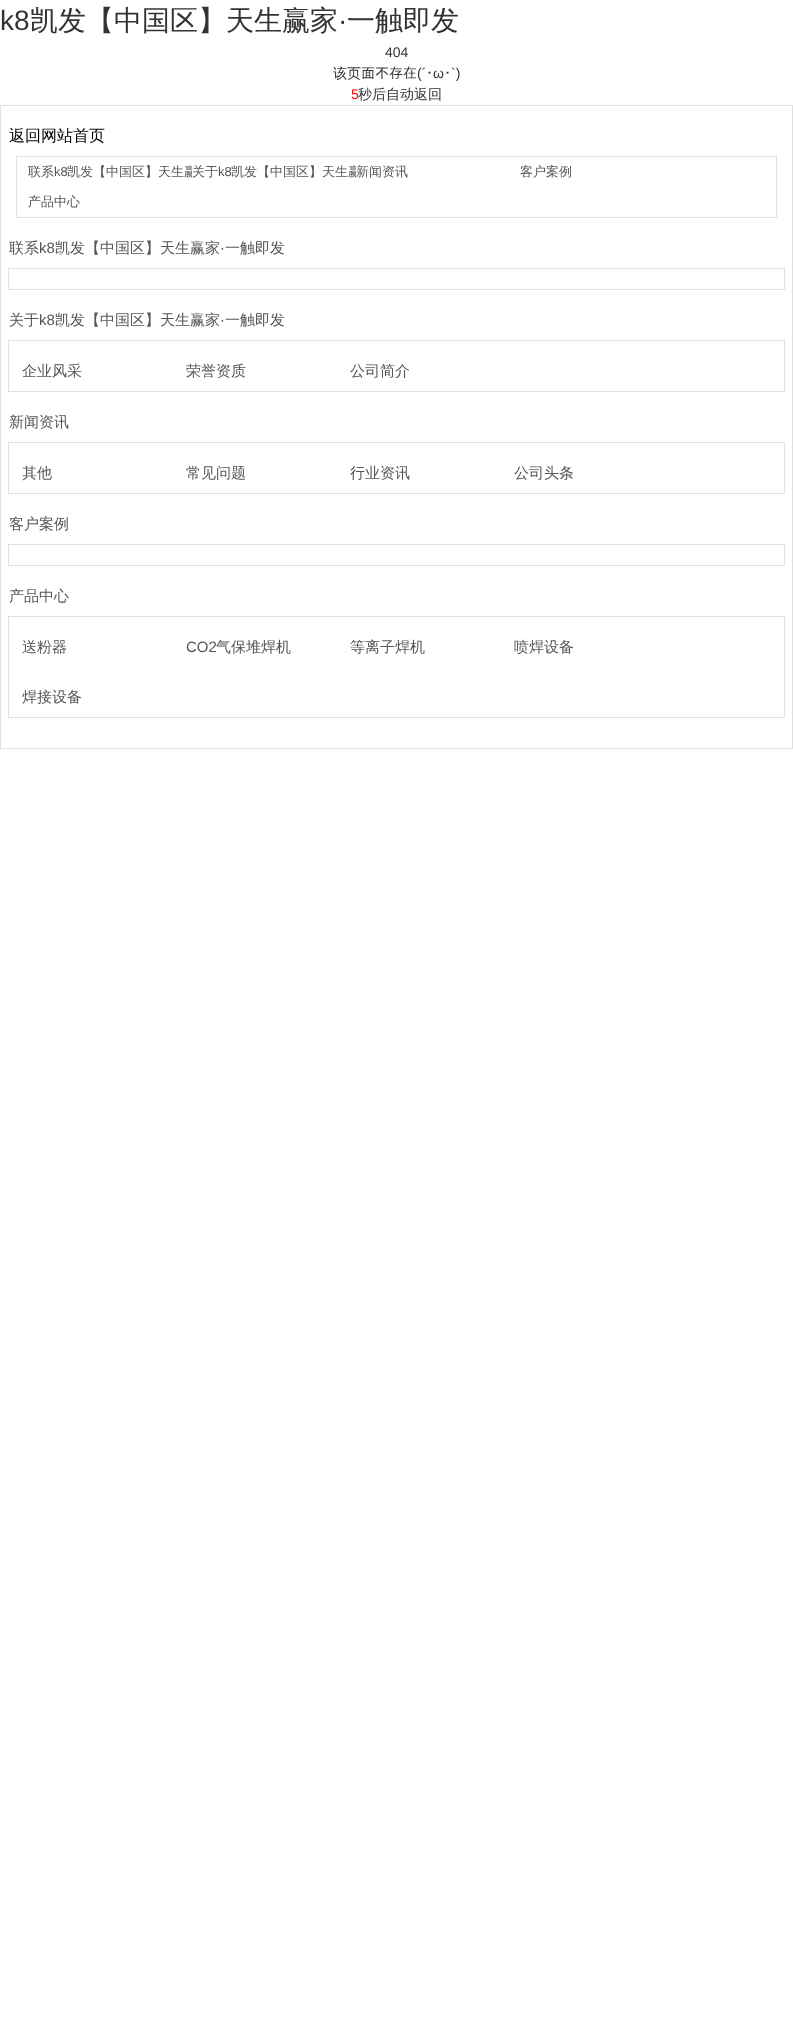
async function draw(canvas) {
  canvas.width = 793
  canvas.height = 2040
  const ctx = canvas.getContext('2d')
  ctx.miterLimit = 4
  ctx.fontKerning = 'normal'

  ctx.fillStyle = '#fff'
  ctx.fillRect(0, 0, 793, 2040)
  ctx.font = '28px Liberation Sans'
  ctx.fillStyle = '#333'
  ctx.fillText('k8', 0, 30)
  ctx.font = '500 28px WenQuanYi Zen Hei'
  ctx.fillText('凯发【中国区】天生赢家', 30, 30)
  ctx.font = '28px Liberation Sans'
  ctx.fillText('·', 338, 30)
  ctx.font = '500 28px WenQuanYi Zen Hei'
  ctx.fillText('一触即发', 347, 30)
  ctx.font = '14px Liberation Sans'
  ctx.fillText('404', 385, 57)
  ctx.font = '500 14px WenQuanYi Zen Hei'
  ctx.fillText('该页', 333, 78)
  ctx.font = '14px IPAGothic'
  ctx.fillText('面不存在', 361, 78)
  ctx.font = '14px Liberation Sans'
  ctx.fillText('(´', 417, 78)
  ctx.font = '14px IPAGothic'
  ctx.fillText('･', 426, 78)
  ctx.font = '14px Liberation Sans'
  ctx.fillText('ω', 433, 78)
  ctx.font = '14px IPAGothic'
  ctx.fillText('･', 444, 78)
  ctx.font = '14px Liberation Sans'
  ctx.fillText('`)', 451, 78)
  ctx.fillStyle = '#f00'
  ctx.fillText('5', 351, 99)
  ctx.font = '500 14px WenQuanYi Zen Hei'
  ctx.fillStyle = '#333'
  ctx.fillText('秒后自动返回', 358, 99)
  ctx.strokeStyle = '#e0e0e0'
  ctx.strokeRect(0.5, 105.5, 792, 643)
  ctx.font = '500 16px WenQuanYi Zen Hei'
  ctx.fillStyle = '#000'
  ctx.fillText('返回网站首页', 9, 141)
  ctx.strokeRect(16.5, 156.5, 760, 61)
  ctx.font = '500 13px WenQuanYi Zen Hei'
  ctx.fillStyle = '#565656'
  ctx.fillText('联系', 28, 176)
  ctx.font = '13px Liberation Sans'
  ctx.fillText('k8', 54, 176)
  ctx.save()
  ctx.beginPath()
  ctx.rect(28, 157, 164, 30)
  ctx.clip()
  ctx.font = '500 13px WenQuanYi Zen Hei'
  ctx.fillText('凯发【中国区】天生赢', 67, 176)
  ctx.restore()
  ctx.font = '500 13px WenQuanYi Zen Hei'
  ctx.fillText('关于', 192, 176)
  ctx.font = '13px Liberation Sans'
  ctx.fillText('k8', 218, 176)
  ctx.save()
  ctx.beginPath()
  ctx.rect(192, 157, 164, 30)
  ctx.clip()
  ctx.font = '500 13px WenQuanYi Zen Hei'
  ctx.fillText('凯发【中国区】天生赢', 231, 176)
  ctx.restore()
  ctx.font = '500 13px WenQuanYi Zen Hei'
  ctx.fillText('新闻资讯', 356, 176)
  ctx.fillText('客户案例', 520, 176)
  ctx.fillText('产品中心', 28, 206)
  ctx.font = '500 15px WenQuanYi Zen Hei'
  ctx.fillText('联系', 9, 253)
  ctx.font = '15px Liberation Sans'
  ctx.fillText('k8', 39, 253)
  ctx.font = '500 15px WenQuanYi Zen Hei'
  ctx.fillText('凯发【中国区】天生赢家', 55, 253)
  ctx.font = '15px Liberation Sans'
  ctx.fillText('·', 220, 253)
  ctx.font = '500 15px WenQuanYi Zen Hei'
  ctx.fillText('一触即发', 225, 253)
  ctx.strokeRect(8.5, 268.5, 776, 21)
  ctx.fillText('关于', 9, 325)
  ctx.font = '15px Liberation Sans'
  ctx.fillText('k8', 39, 325)
  ctx.font = '500 15px WenQuanYi Zen Hei'
  ctx.fillText('凯发【中国区】天生赢家', 55, 325)
  ctx.font = '15px Liberation Sans'
  ctx.fillText('·', 220, 325)
  ctx.font = '500 15px WenQuanYi Zen Hei'
  ctx.fillText('一触即发', 225, 325)
  ctx.strokeRect(8.5, 340.5, 776, 51)
  ctx.fillText('企业风采', 22, 376)
  ctx.fillText('荣誉资质', 186, 376)
  ctx.fillText('公司简介', 350, 376)
  ctx.fillText('新闻资讯', 9, 427)
  ctx.strokeRect(8.5, 442.5, 776, 51)
  ctx.fillText('其他', 22, 478)
  ctx.fillText('常见问题', 186, 478)
  ctx.fillText('行业资讯', 350, 478)
  ctx.fillText('公司头条', 514, 478)
  ctx.fillText('客户案例', 9, 529)
  ctx.strokeRect(8.5, 544.5, 776, 21)
  ctx.fillText('产品中心', 9, 601)
  ctx.strokeRect(8.5, 616.5, 776, 101)
  ctx.fillText('送粉器', 22, 652)
  ctx.font = '15px Liberation Sans'
  ctx.fillText('CO2', 186, 652)
  ctx.font = '500 15px WenQuanYi Zen Hei'
  ctx.fillText('气保堆焊机', 216, 652)
  ctx.fillText('等离子焊机', 350, 652)
  ctx.fillText('喷焊设备', 514, 652)
  ctx.fillText('焊接设备', 22, 702)
}

draw(document.querySelector('canvas'))
